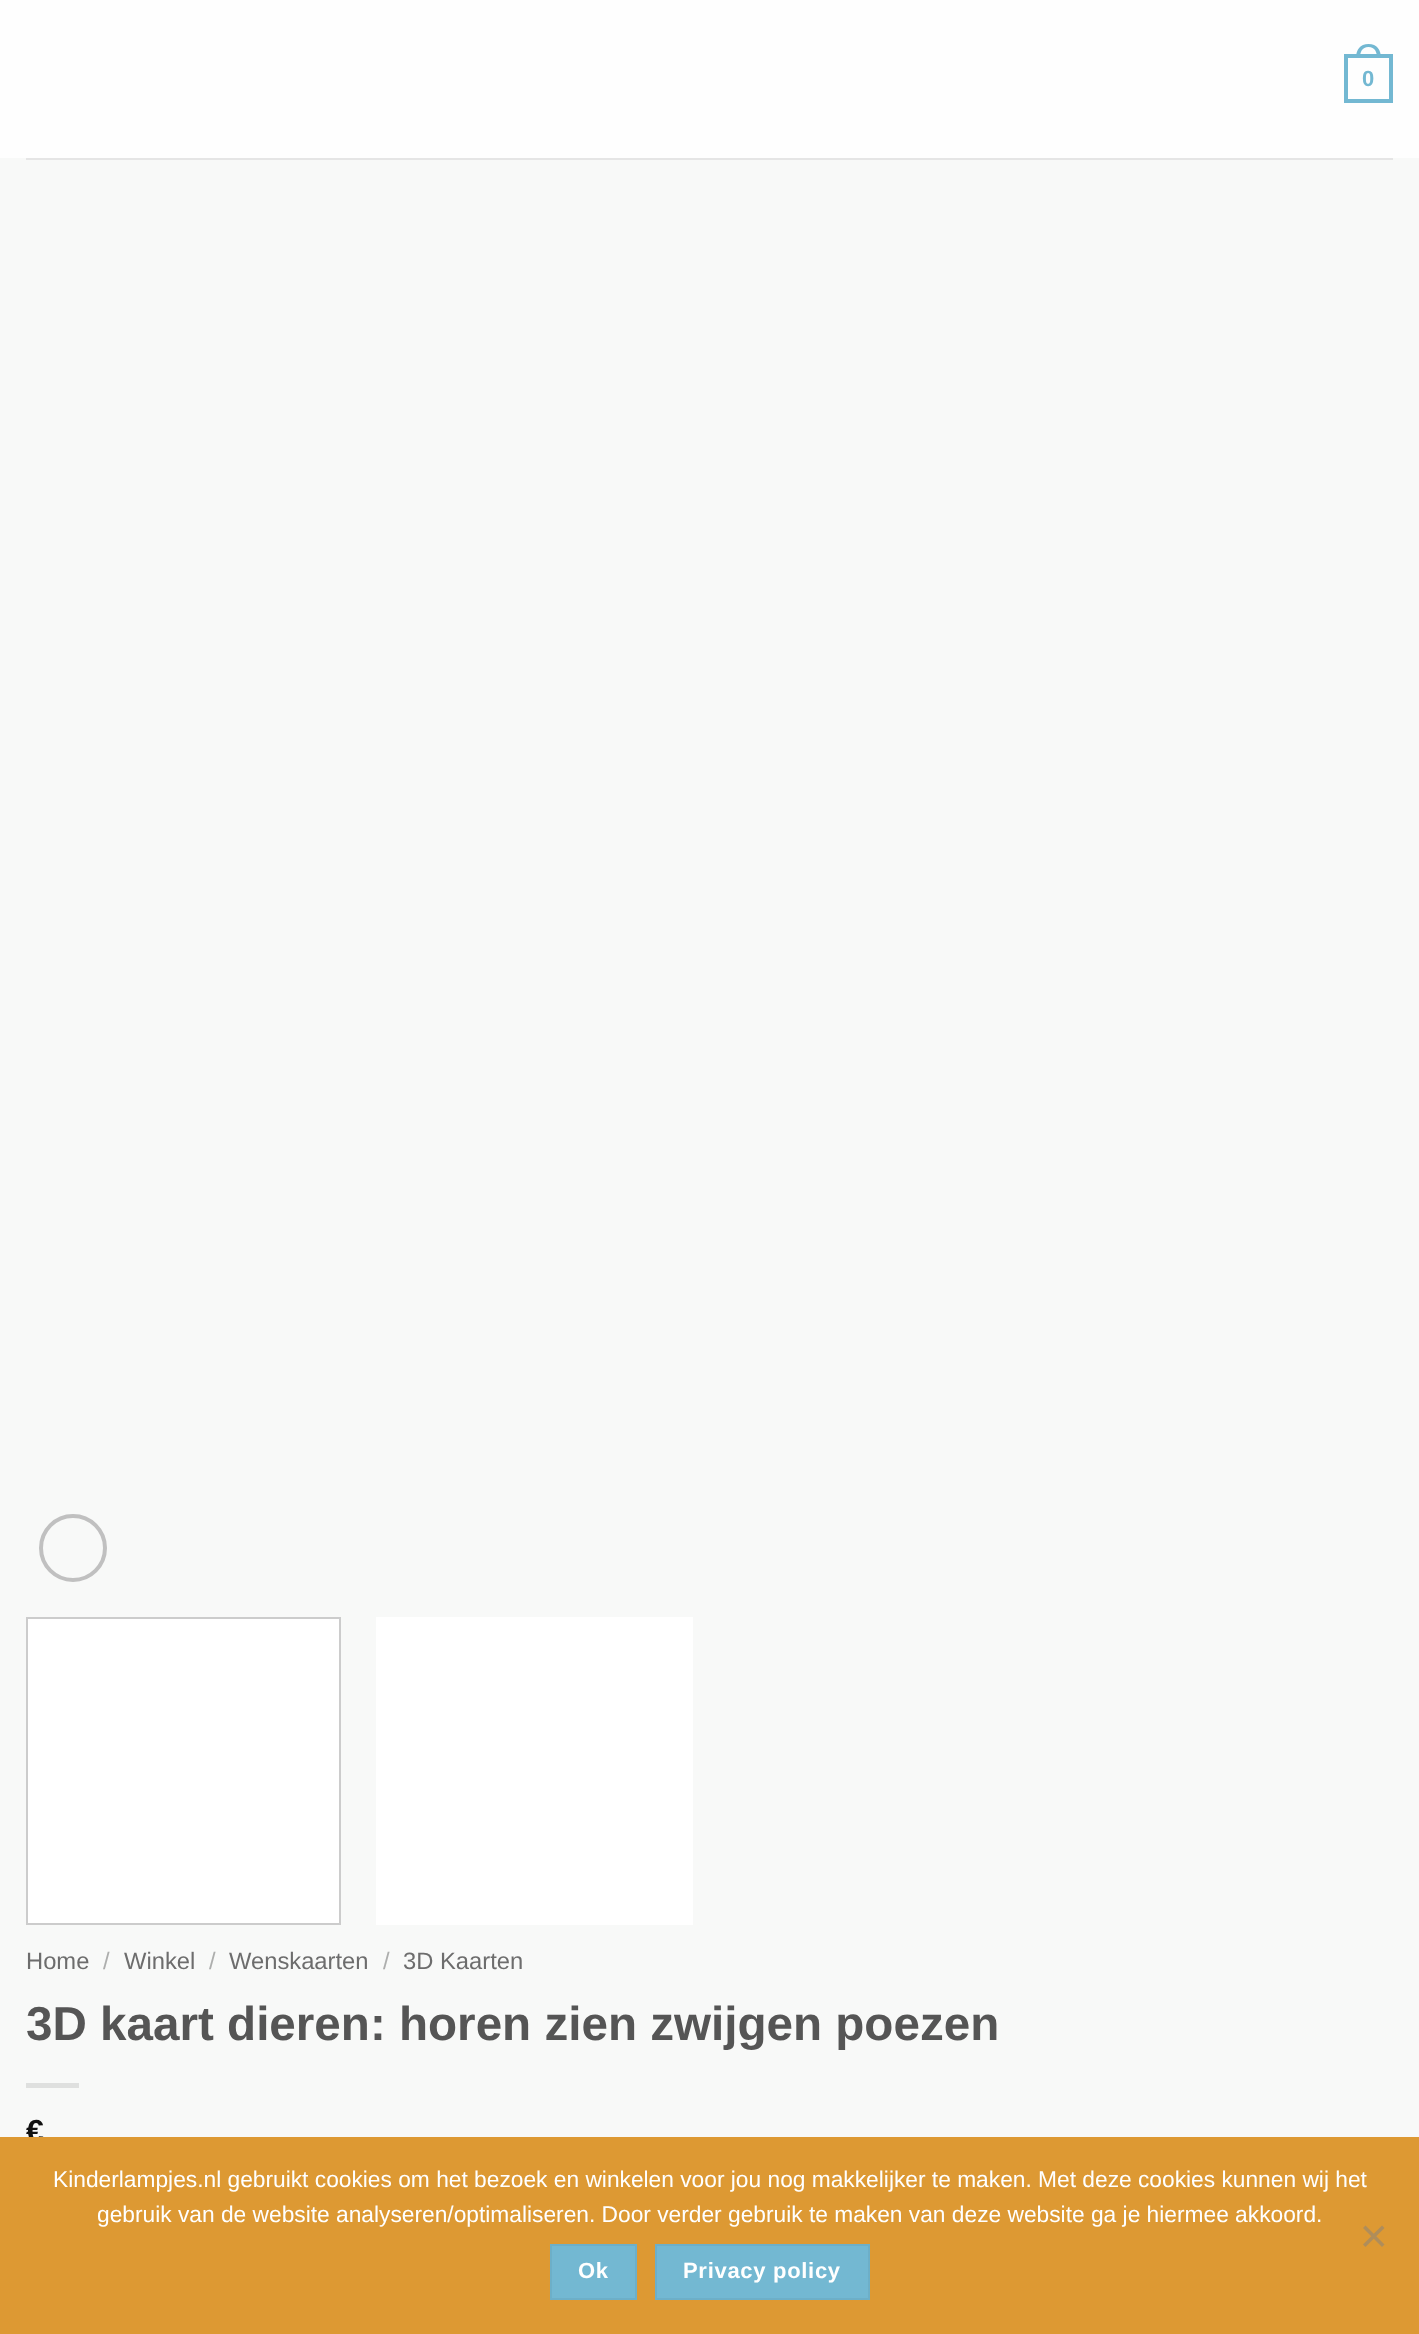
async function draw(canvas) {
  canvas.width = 1419
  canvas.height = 2334
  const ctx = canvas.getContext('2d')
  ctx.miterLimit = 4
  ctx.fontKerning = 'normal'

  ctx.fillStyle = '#f8f9f8'
  ctx.fillRect(0, 0, 1419, 2334)
  ctx.fillStyle = '#fefefe'
  ctx.fillRect(0, 0, 1419, 158)
  ctx.strokeStyle = '#73b8d2'
  ctx.lineWidth = 4
  ctx.strokeRect(1346, 56, 45, 45)
  ctx.fillStyle = '#73b8d2'
  ctx.beginPath()
  ctx.moveTo(1368.5, 44)
  ctx.bezierCurveTo(1377, 44, 1381, 50, 1381, 58)
  ctx.lineTo(1356, 58)
  ctx.bezierCurveTo(1356, 50, 1360, 44, 1368.5, 44)
  ctx.closePath()
  ctx.moveTo(1368.5, 47)
  ctx.bezierCurveTo(1375, 47, 1377, 52, 1377, 58)
  ctx.lineTo(1360, 58)
  ctx.bezierCurveTo(1360, 52, 1362, 47, 1368.5, 47)
  ctx.closePath()
  ctx.fill('evenodd')
  ctx.font = 'bold 22px Liberation Sans'
  ctx.fillText('0', 1362, 86)
  ctx.fillStyle = '#e5e5e5'
  ctx.fillRect(26, 158, 1367, 2)
  ctx.beginPath()
  ctx.arc(73, 1548, 32, 0, 2 * Math.PI)
  ctx.strokeStyle = '#c0c0c0'
  ctx.stroke()
  ctx.fillStyle = '#fff'
  ctx.beginPath()
  ctx.rect(27, 1618, 313, 306)
  ctx.fill()
  ctx.strokeStyle = '#ccc'
  ctx.lineWidth = 2
  ctx.stroke()
  ctx.fillRect(376, 1617, 317, 308)
  ctx.font = '23.75px Liberation Sans'
  ctx.fillStyle = '#6d6d6d'
  ctx.fillText('Home', 26, 1969)
  ctx.fillStyle = '#adaead'
  ctx.fillText('/', 103, 1969)
  ctx.fillStyle = '#6d6d6d'
  ctx.fillText('Winkel', 124, 1969)
  ctx.fillStyle = '#adaead'
  ctx.fillText('/', 209, 1969)
  ctx.fillStyle = '#6d6d6d'
  ctx.fillText('Wenskaarten', 229, 1969)
  ctx.fillStyle = '#adaead'
  ctx.fillText('/', 383, 1969)
  ctx.fillStyle = '#6d6d6d'
  ctx.fillText('3D Kaarten', 403, 1969)
  ctx.font = 'bold 47.6px Liberation Sans'
  ctx.fillStyle = '#555'
  ctx.fillText('3D kaart dieren: horen zien zwijgen poezen', 26, 2040)
  ctx.fillStyle = '#dfe0df'
  ctx.fillRect(26, 2083, 53, 5)
  ctx.font = 'bold 32px Liberation Sans'
  ctx.fillStyle = '#111'
  ctx.fillText('€', 26, 2142)
  ctx.fillStyle = '#d93'
  ctx.fillRect(0, 2137, 1419, 197)
  ctx.font = '22.75px Liberation Sans'
  ctx.fillStyle = '#fff'
  ctx.fillText('Kinderlampjes.nl gebruikt cookies om het bezoek en winkelen voor jou nog makkelijker te maken. Met deze cookies kunnen wij het', 53, 2187)
  ctx.fillText('gebruik van de website analyseren/optimaliseren. Door verder gebruik te maken van deze website ga je hiermee akkoord.', 97, 2222)
  ctx.fillStyle = '#af8d5a'
  ctx.beginPath()
  ctx.moveTo(1382, 2225.5)
  ctx.lineTo(1384.5, 2228)
  ctx.lineTo(1365.5, 2247)
  ctx.lineTo(1363, 2244.5)
  ctx.closePath()
  ctx.fill()
  ctx.beginPath()
  ctx.moveTo(1363, 2228)
  ctx.lineTo(1365.5, 2225.5)
  ctx.lineTo(1384.5, 2244.5)
  ctx.lineTo(1382, 2247)
  ctx.closePath()
  ctx.fill()
  ctx.fillStyle = '#73b8d2'
  ctx.beginPath()
  ctx.rect(551, 2245, 85, 54)
  ctx.fill()
  ctx.strokeStyle = '#6dafc8'
  ctx.stroke()
  ctx.letterSpacing = '0.7px'
  ctx.font = 'bold 22px Liberation Sans'
  ctx.fillStyle = '#fff'
  ctx.fillText('Ok', 578, 2278)
  ctx.fillStyle = '#73b8d2'
  ctx.beginPath()
  ctx.rect(656, 2245, 213, 54)
  ctx.fill()
  ctx.stroke()
  ctx.fillStyle = '#fff'
  ctx.fillText('Privacy policy', 683, 2278)
}

draw(document.querySelector('canvas'))
